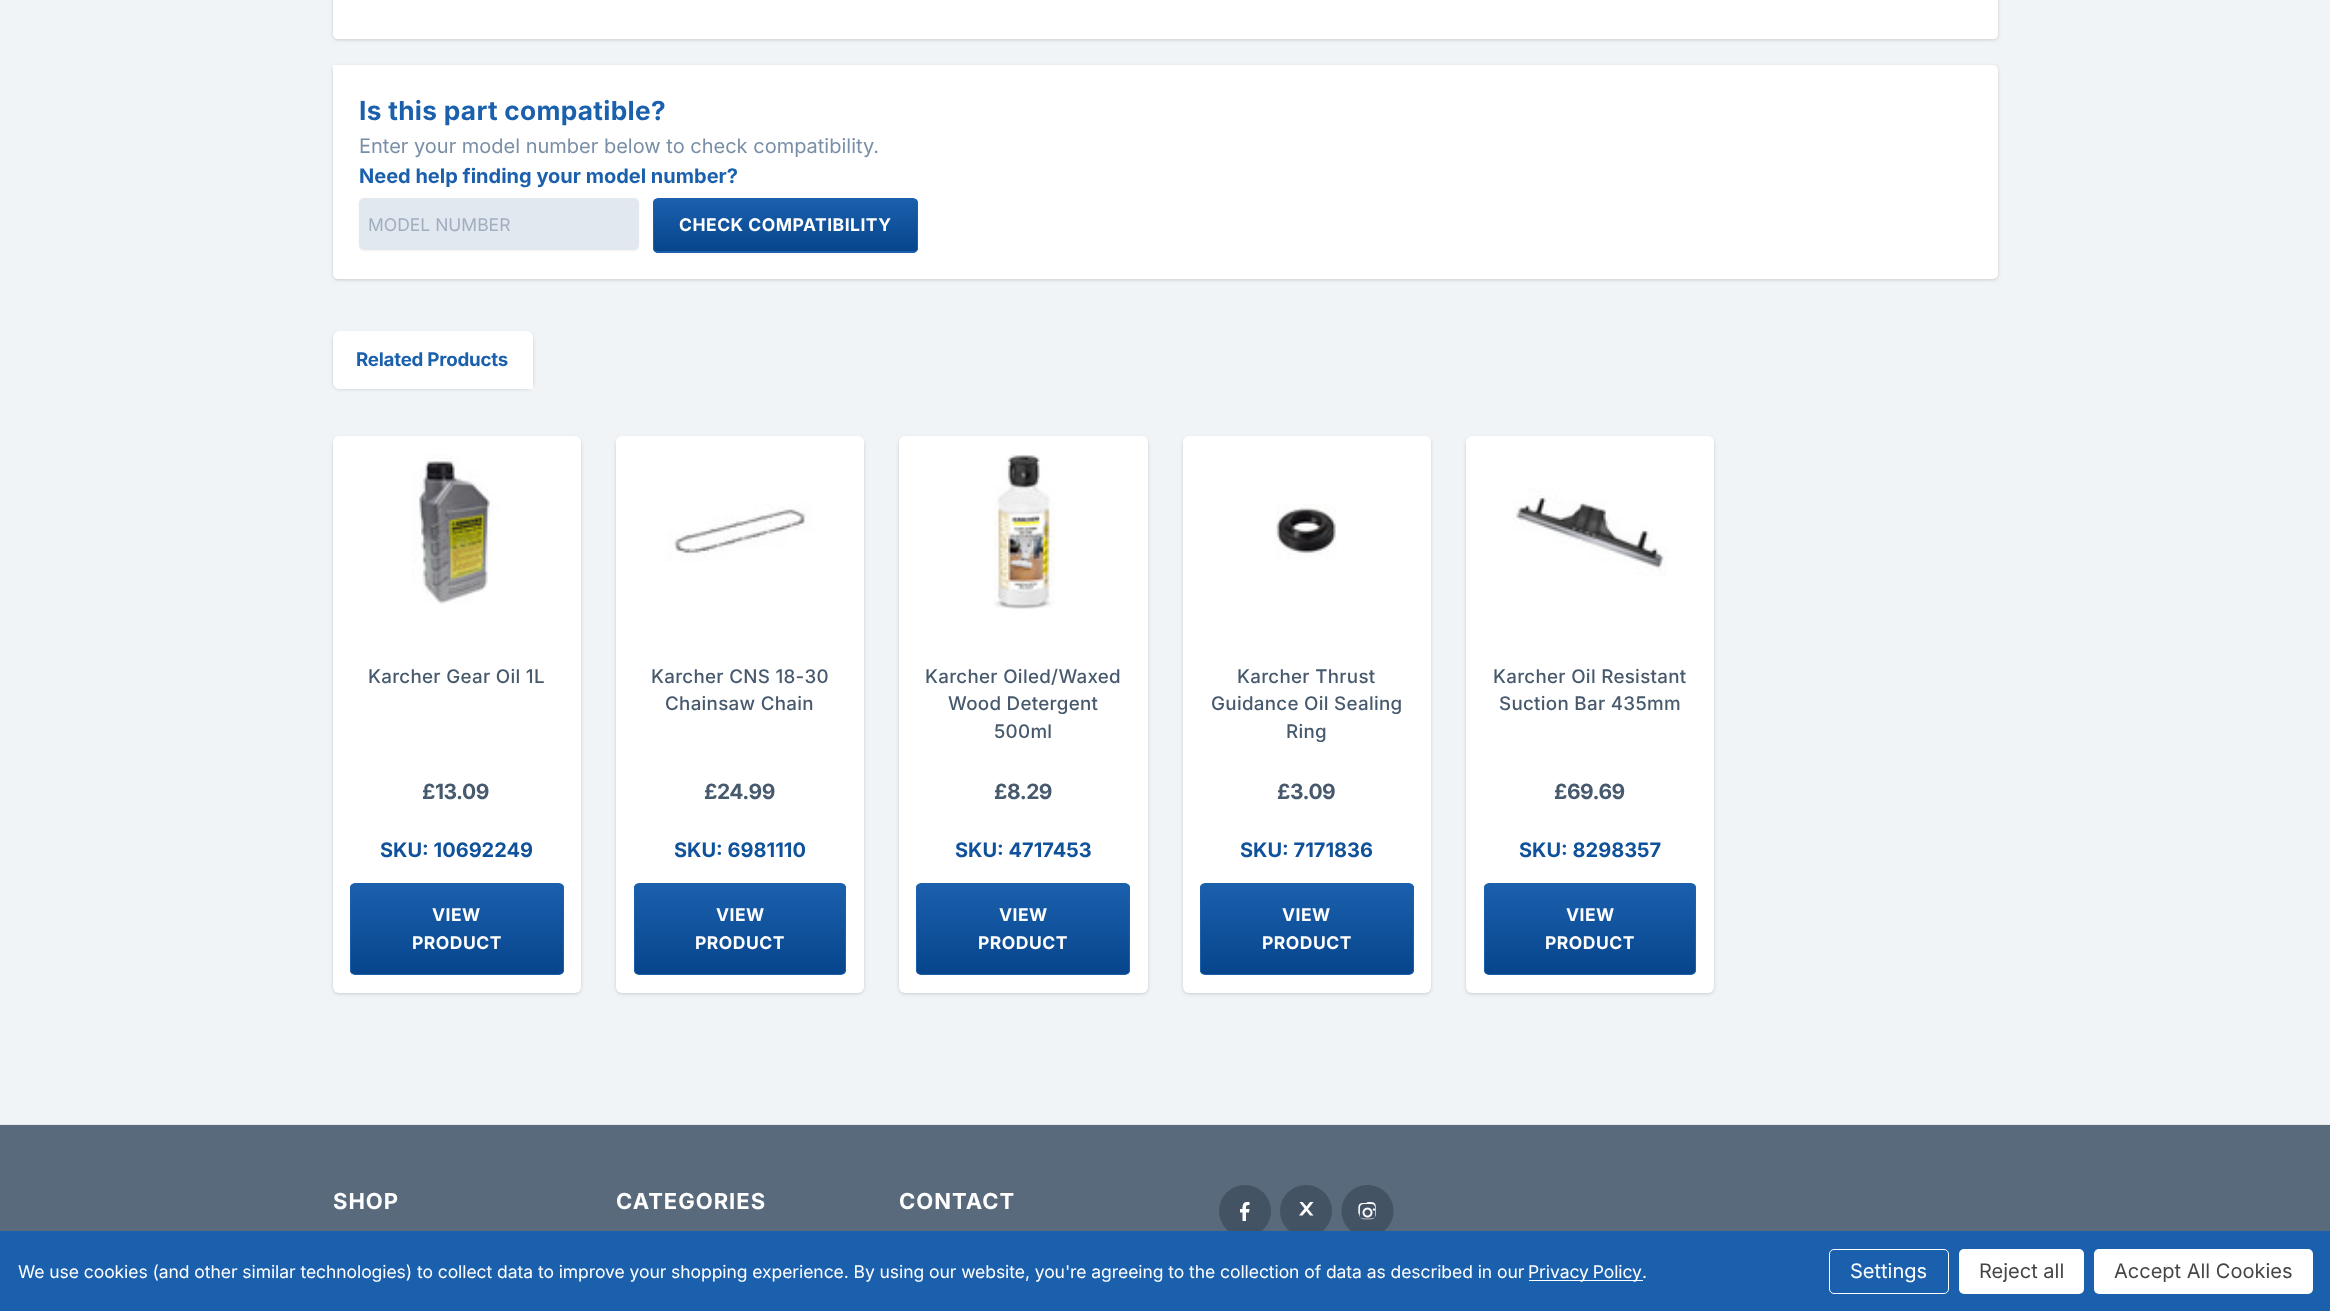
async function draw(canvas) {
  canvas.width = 2330
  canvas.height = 1311
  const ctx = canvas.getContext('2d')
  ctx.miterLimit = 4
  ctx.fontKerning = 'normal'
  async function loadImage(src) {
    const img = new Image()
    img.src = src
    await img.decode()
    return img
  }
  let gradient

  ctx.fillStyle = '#f0f4f6'
  ctx.fillRect(0, 0, 2330, 1311)
  ctx.fillStyle = '#0000000f'
  ctx.filter = 'blur(1px)'
  ctx.beginPath()
  ctx.roundRect(333, -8, 1665, 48, 5)
  ctx.fill()
  ctx.filter = 'none'
  ctx.fillStyle = '#0000001a'
  ctx.filter = 'blur(2px)'
  ctx.beginPath()
  ctx.roundRect(333, -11, 1665, 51, 5)
  ctx.fill()
  ctx.filter = 'none'
  ctx.fillStyle = '#fff'
  ctx.beginPath()
  ctx.moveTo(333, -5)
  ctx.lineTo(1993, -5)
  ctx.bezierCurveTo(1996, -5, 1998, -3, 1998, 0)
  ctx.lineTo(1998, 34)
  ctx.bezierCurveTo(1998, 37, 1996, 39, 1993, 39)
  ctx.lineTo(338, 39)
  ctx.bezierCurveTo(335, 39, 333, 37, 333, 34)
  ctx.closePath()
  ctx.fill()
  ctx.fillStyle = '#0000000f'
  ctx.filter = 'blur(1px)'
  ctx.beginPath()
  ctx.roundRect(333, 66, 1665, 214, 5)
  ctx.fill()
  ctx.filter = 'none'
  ctx.fillStyle = '#0000001a'
  ctx.filter = 'blur(2px)'
  ctx.beginPath()
  ctx.roundRect(333, 66, 1665, 214, 5)
  ctx.fill()
  ctx.filter = 'none'
  ctx.fillStyle = '#fff'
  ctx.beginPath()
  ctx.roundRect(333, 65, 1665, 214, [0, 5, 5, 5])
  ctx.fill()
  ctx.letterSpacing = '0.3px'
  ctx.font = 'bold 26.25px Inter'
  ctx.fillStyle = '#1b60ad'
  ctx.fillText('Is this part compatible?', 359, 120)
  ctx.letterSpacing = '0px'
  ctx.font = '20px Inter'
  ctx.fillStyle = '#798fa7'
  ctx.fillText('Enter your model number below to check compatibility.', 359, 153)
  ctx.font = 'bold 20px Inter'
  ctx.fillStyle = '#1b60ad'
  ctx.fillText('Need help finding your model number?', 359, 183)
  ctx.fillStyle = '#0000000d'
  ctx.filter = 'blur(1px)'
  ctx.beginPath()
  ctx.roundRect(359, 199, 280, 52, 5)
  ctx.fill()
  ctx.filter = 'none'
  ctx.fillStyle = '#e2e8f0'
  ctx.beginPath()
  ctx.roundRect(359, 198, 280, 52, 5)
  ctx.fill()
  ctx.font = '17.5px Inter'
  ctx.fillStyle = '#a0aec0'
  ctx.fillText('MODEL NUMBER', 368, 231)
  ctx.save()
  ctx.beginPath()
  ctx.roundRect(653, 198, 265, 55, 5)
  ctx.clip()
  gradient = ctx.createLinearGradient(785, 199, 785, 251)
  gradient.addColorStop(0, '#1b60ad')
  gradient.addColorStop(1, '#06458c')
  ctx.fillStyle = gradient
  ctx.fillRect(653, 199, 265, 52)
  gradient = ctx.createLinearGradient(785, 251, 785, 304)
  gradient.addColorStop(0, '#1b60ad')
  gradient.addColorStop(1, '#06458c')
  ctx.fillStyle = gradient
  ctx.fillRect(653, 251, 265, 2)
  ctx.restore()
  ctx.beginPath()
  ctx.roundRect(653.5, 198.5, 264, 54, 4.5)
  ctx.strokeStyle = '#1b60ad'
  ctx.stroke()
  ctx.letterSpacing = '0.5px'
  ctx.font = 'bold 17.5px Inter'
  ctx.fillStyle = '#fff'
  ctx.fillText('CHECK COMPATIBILITY', 679, 231)
  ctx.fillStyle = '#0000000f'
  ctx.filter = 'blur(1px)'
  ctx.beginPath()
  ctx.roundRect(333, 333, 200, 56, 6)
  ctx.fill()
  ctx.filter = 'none'
  ctx.fillStyle = '#0000001a'
  ctx.filter = 'blur(2px)'
  ctx.beginPath()
  ctx.roundRect(333, 333, 200, 56, 6)
  ctx.fill()
  ctx.filter = 'none'
  ctx.fillStyle = '#fff'
  ctx.beginPath()
  ctx.roundRect(333.5, 331.5, 199, 57, [5.5, 5.5, 0, 5.5])
  ctx.fill()
  ctx.strokeStyle = '#fff'
  ctx.stroke()
  ctx.letterSpacing = '-0.25px'
  ctx.font = 'bold 18.75px Inter'
  ctx.fillStyle = '#1b60ad'
  ctx.fillText('Related Products', 356, 366)
  ctx.fillStyle = '#0000000f'
  ctx.filter = 'blur(1px)'
  ctx.beginPath()
  ctx.roundRect(333, 438, 248, 556, 6)
  ctx.fill()
  ctx.filter = 'none'
  ctx.fillStyle = '#0000001a'
  ctx.filter = 'blur(2px)'
  ctx.beginPath()
  ctx.roundRect(333, 438, 248, 556, 6)
  ctx.fill()
  ctx.filter = 'none'
  ctx.fillStyle = '#fff'
  ctx.beginPath()
  ctx.roundRect(333, 436, 248, 557, 6)
  ctx.fill()
  ctx.drawImage(await loadImage('image0.png'), 412, 454, 87, 150)
  ctx.letterSpacing = '0.3px'
  ctx.font = '500 18.75px Inter'
  ctx.fillStyle = '#47596d'
  ctx.fillText('Karcher Gear Oil 1L', 368, 683)
  ctx.letterSpacing = '-0.5px'
  ctx.font = 'bold 21px Inter'
  ctx.fillText('£13.09', 422, 799)
  ctx.letterSpacing = '0px'
  ctx.font = 'bold 20px Inter'
  ctx.fillStyle = '#0f519a'
  ctx.fillText('SKU: 10692249', 380, 857)
  ctx.save()
  ctx.beginPath()
  ctx.roundRect(350, 883, 214, 92, 5)
  ctx.clip()
  gradient = ctx.createLinearGradient(457, 884, 457, 974)
  gradient.addColorStop(0, '#1b60ad')
  gradient.addColorStop(1, '#06458c')
  ctx.fillStyle = gradient
  ctx.fillRect(350, 884, 214, 90)
  ctx.restore()
  ctx.beginPath()
  ctx.roundRect(350.5, 883.5, 213, 91, 4.5)
  ctx.strokeStyle = '#1b60ad'
  ctx.stroke()
  ctx.letterSpacing = '0.5px'
  ctx.font = 'bold 17.5px Inter'
  ctx.fillStyle = '#fff'
  ctx.fillText('VIEW', 432, 921)
  ctx.fillText('PRODUCT', 412, 949)
  ctx.fillStyle = '#0000000f'
  ctx.filter = 'blur(1px)'
  ctx.beginPath()
  ctx.roundRect(616, 438, 248, 556, 6)
  ctx.fill()
  ctx.filter = 'none'
  ctx.fillStyle = '#0000001a'
  ctx.filter = 'blur(2px)'
  ctx.beginPath()
  ctx.roundRect(616, 438, 248, 556, 6)
  ctx.fill()
  ctx.filter = 'none'
  ctx.fillStyle = '#fff'
  ctx.beginPath()
  ctx.roundRect(616, 436, 248, 557, 6)
  ctx.fill()
  ctx.drawImage(await loadImage('image1.png'), 665, 503, 148, 59)
  ctx.letterSpacing = '0.3px'
  ctx.font = '500 18.75px Inter'
  ctx.fillStyle = '#47596d'
  ctx.fillText('Karcher CNS 18-30', 651, 683)
  ctx.fillText('Chainsaw Chain', 665, 710)
  ctx.letterSpacing = '-0.5px'
  ctx.font = 'bold 21px Inter'
  ctx.fillText('£24.99', 704, 799)
  ctx.letterSpacing = '0px'
  ctx.font = 'bold 20px Inter'
  ctx.fillStyle = '#0f519a'
  ctx.fillText('SKU: 6981110', 674, 857)
  ctx.save()
  ctx.beginPath()
  ctx.roundRect(634, 883, 212, 92, 5)
  ctx.clip()
  gradient = ctx.createLinearGradient(740, 884, 740, 974)
  gradient.addColorStop(0, '#1b60ad')
  gradient.addColorStop(1, '#06458c')
  ctx.fillStyle = gradient
  ctx.fillRect(634, 884, 212, 90)
  ctx.restore()
  ctx.beginPath()
  ctx.roundRect(634.5, 883.5, 211, 91, 4.5)
  ctx.stroke()
  ctx.letterSpacing = '0.5px'
  ctx.font = 'bold 17.5px Inter'
  ctx.fillStyle = '#fff'
  ctx.fillText('VIEW', 716, 921)
  ctx.fillText('PRODUCT', 695, 949)
  ctx.fillStyle = '#0000000f'
  ctx.filter = 'blur(1px)'
  ctx.beginPath()
  ctx.roundRect(899, 438, 249, 556, 6)
  ctx.fill()
  ctx.filter = 'none'
  ctx.fillStyle = '#0000001a'
  ctx.filter = 'blur(2px)'
  ctx.beginPath()
  ctx.roundRect(899, 438, 249, 556, 6)
  ctx.fill()
  ctx.filter = 'none'
  ctx.fillStyle = '#fff'
  ctx.beginPath()
  ctx.roundRect(899, 436, 249, 557, 6)
  ctx.fill()
  ctx.drawImage(await loadImage('image2.png'), 993, 454, 62, 155)
  ctx.letterSpacing = '0.3px'
  ctx.font = '500 18.75px Inter'
  ctx.fillStyle = '#47596d'
  ctx.fillText('Karcher Oiled/Waxed', 925, 683)
  ctx.fillText('Wood Detergent', 948, 710)
  ctx.fillText('500ml', 994, 738)
  ctx.letterSpacing = '-0.5px'
  ctx.font = 'bold 21px Inter'
  ctx.fillText('£8.29', 994, 799)
  ctx.letterSpacing = '0px'
  ctx.font = 'bold 20px Inter'
  ctx.fillStyle = '#0f519a'
  ctx.fillText('SKU: 4717453', 955, 857)
  ctx.save()
  ctx.beginPath()
  ctx.roundRect(916, 883, 214, 92, 5)
  ctx.clip()
  gradient = ctx.createLinearGradient(1023, 884, 1023, 974)
  gradient.addColorStop(0, '#1b60ad')
  gradient.addColorStop(1, '#06458c')
  ctx.fillStyle = gradient
  ctx.fillRect(916, 884, 214, 90)
  ctx.restore()
  ctx.beginPath()
  ctx.roundRect(916.5, 883.5, 213, 91, 4.5)
  ctx.stroke()
  ctx.letterSpacing = '0.5px'
  ctx.font = 'bold 17.5px Inter'
  ctx.fillStyle = '#fff'
  ctx.fillText('VIEW', 999, 921)
  ctx.fillText('PRODUCT', 978, 949)
  ctx.fillStyle = '#0000000f'
  ctx.filter = 'blur(1px)'
  ctx.beginPath()
  ctx.roundRect(1183, 438, 248, 556, 6)
  ctx.fill()
  ctx.filter = 'none'
  ctx.fillStyle = '#0000001a'
  ctx.filter = 'blur(2px)'
  ctx.beginPath()
  ctx.roundRect(1183, 438, 248, 556, 6)
  ctx.fill()
  ctx.filter = 'none'
  ctx.fillStyle = '#fff'
  ctx.beginPath()
  ctx.roundRect(1183, 436, 248, 557, 6)
  ctx.fill()
  ctx.drawImage(await loadImage('image3.png'), 1275, 503, 62, 57)
  ctx.letterSpacing = '0.3px'
  ctx.font = '500 18.75px Inter'
  ctx.fillStyle = '#47596d'
  ctx.fillText('Karcher Thrust', 1237, 683)
  ctx.fillText('Guidance Oil Sealing', 1211, 710)
  ctx.fillText('Ring', 1286, 738)
  ctx.letterSpacing = '-0.5px'
  ctx.font = 'bold 21px Inter'
  ctx.fillText('£3.09', 1277, 799)
  ctx.letterSpacing = '0px'
  ctx.font = 'bold 20px Inter'
  ctx.fillStyle = '#0f519a'
  ctx.fillText('SKU: 7171836', 1240, 857)
  ctx.save()
  ctx.beginPath()
  ctx.roundRect(1200, 883, 214, 92, 5)
  ctx.clip()
  gradient = ctx.createLinearGradient(1307, 884, 1307, 974)
  gradient.addColorStop(0, '#1b60ad')
  gradient.addColorStop(1, '#06458c')
  ctx.fillStyle = gradient
  ctx.fillRect(1200, 884, 214, 90)
  ctx.restore()
  ctx.beginPath()
  ctx.roundRect(1200.5, 883.5, 213, 91, 4.5)
  ctx.stroke()
  ctx.letterSpacing = '0.5px'
  ctx.font = 'bold 17.5px Inter'
  ctx.fillStyle = '#fff'
  ctx.fillText('VIEW', 1282, 921)
  ctx.fillText('PRODUCT', 1262, 949)
  ctx.fillStyle = '#0000000f'
  ctx.filter = 'blur(1px)'
  ctx.beginPath()
  ctx.roundRect(1466, 438, 248, 556, 6)
  ctx.fill()
  ctx.filter = 'none'
  ctx.fillStyle = '#0000001a'
  ctx.filter = 'blur(2px)'
  ctx.beginPath()
  ctx.roundRect(1466, 438, 248, 556, 6)
  ctx.fill()
  ctx.filter = 'none'
  ctx.fillStyle = '#fff'
  ctx.beginPath()
  ctx.roundRect(1466, 436, 248, 557, 6)
  ctx.fill()
  ctx.drawImage(await loadImage('image4.png'), 1512, 487, 156, 89)
  ctx.letterSpacing = '0.3px'
  ctx.font = '500 18.75px Inter'
  ctx.fillStyle = '#47596d'
  ctx.fillText('Karcher Oil Resistant', 1493, 683)
  ctx.fillText('Suction Bar 435mm', 1499, 710)
  ctx.letterSpacing = '-0.5px'
  ctx.font = 'bold 21px Inter'
  ctx.fillText('£69.69', 1554, 799)
  ctx.letterSpacing = '0px'
  ctx.font = 'bold 20px Inter'
  ctx.fillStyle = '#0f519a'
  ctx.fillText('SKU: 8298357', 1519, 857)
  ctx.save()
  ctx.beginPath()
  ctx.roundRect(1484, 883, 212, 92, 5)
  ctx.clip()
  gradient = ctx.createLinearGradient(1590, 884, 1590, 974)
  gradient.addColorStop(0, '#1b60ad')
  gradient.addColorStop(1, '#06458c')
  ctx.fillStyle = gradient
  ctx.fillRect(1484, 884, 212, 90)
  ctx.restore()
  ctx.beginPath()
  ctx.roundRect(1484.5, 883.5, 211, 91, 4.5)
  ctx.stroke()
  ctx.letterSpacing = '0.5px'
  ctx.font = 'bold 17.5px Inter'
  ctx.fillStyle = '#fff'
  ctx.fillText('VIEW', 1566, 921)
  ctx.fillText('PRODUCT', 1545, 949)
  ctx.fillStyle = '#596a7d'
  ctx.fillRect(0, 1125, 2330, 106)
  ctx.fillStyle = '#e5e5e5'
  ctx.fillRect(0, 1124, 2330, 1)
  ctx.letterSpacing = '1px'
  ctx.font = 'bold 22px Inter'
  ctx.fillStyle = '#fff'
  ctx.fillText('SHOP', 333, 1209)
  ctx.fillText('CATEGORIES', 616, 1209)
  ctx.fillText('CONTACT', 899, 1209)
  ctx.fillStyle = '#435364'
  ctx.beginPath()
  ctx.arc(1245, 1211, 26, 0, 2 * Math.PI)
  ctx.fill()
  ctx.fillStyle = '#fff'
  ctx.beginPath()
  ctx.moveTo(1246, 1221)
  ctx.lineTo(1246, 1212.5)
  ctx.lineTo(1249, 1212.5)
  ctx.lineTo(1249.5, 1209)
  ctx.lineTo(1246, 1209)
  ctx.bezierCurveTo(1246, 1205.5, 1246, 1205, 1249.5, 1205)
  ctx.lineTo(1249.5, 1202)
  ctx.bezierCurveTo(1244, 1201.5, 1242.5, 1203, 1242.5, 1209)
  ctx.lineTo(1240, 1209)
  ctx.lineTo(1240, 1212.5)
  ctx.lineTo(1242.5, 1212.5)
  ctx.lineTo(1242.5, 1221)
  ctx.closePath()
  ctx.fill()
  ctx.fillStyle = '#435364'
  ctx.beginPath()
  ctx.arc(1306, 1211, 26, 0, 2 * Math.PI)
  ctx.fill()
  ctx.fillStyle = '#fff'
  ctx.beginPath()
  ctx.moveTo(1313.5, 1202)
  ctx.lineTo(1310, 1202)
  ctx.lineTo(1306.5, 1206.5)
  ctx.lineTo(1302.5, 1202)
  ctx.lineTo(1299.5, 1202)
  ctx.lineTo(1304.5, 1208.5)
  ctx.lineTo(1299, 1215.5)
  ctx.lineTo(1302.5, 1215.5)
  ctx.lineTo(1306.5, 1211)
  ctx.lineTo(1310, 1215.5)
  ctx.lineTo(1313.5, 1215.5)
  ctx.lineTo(1308, 1209)
  ctx.closePath()
  ctx.fill()
  ctx.drawImage(await loadImage('image5.png'), 1341, 1185, 53, 46)
  ctx.fillStyle = '#1b60ad'
  ctx.fillRect(0, 1231, 2330, 80)
  ctx.letterSpacing = '-0.06px'
  ctx.font = '17.5px Inter'
  ctx.fillStyle = '#fff'
  ctx.fillText('We use cookies (and other similar technologies) to collect data to improve your shopping experience. By using our website, you\'re agreeing to the collection of data as described in our', 18, 1278)
  ctx.fillRect(1529, 1280, 114, 1)
  ctx.wordSpacing = '-1px'
  ctx.fillText('Privacy Policy', 1528, 1278)
  ctx.wordSpacing = '0px'
  ctx.fillText('.', 1642, 1278)
  ctx.beginPath()
  ctx.roundRect(1829.5, 1249.5, 119, 44, 4.5)
  ctx.strokeStyle = '#fff'
  ctx.stroke()
  ctx.letterSpacing = '0px'
  ctx.font = '20px Inter'
  ctx.fillText('Settings', 1850, 1278)
  ctx.beginPath()
  ctx.roundRect(1959, 1249, 125, 45, 5)
  ctx.fill()
  ctx.fillStyle = '#454545'
  ctx.fillText('Reject all', 1979, 1278)
  ctx.fillStyle = '#fff'
  ctx.beginPath()
  ctx.roundRect(2094, 1249, 219, 45, 5)
  ctx.fill()
  ctx.fillStyle = '#454545'
  ctx.fillText('Accept All Cookies', 2114, 1278)
}

draw(document.querySelector('canvas'))
